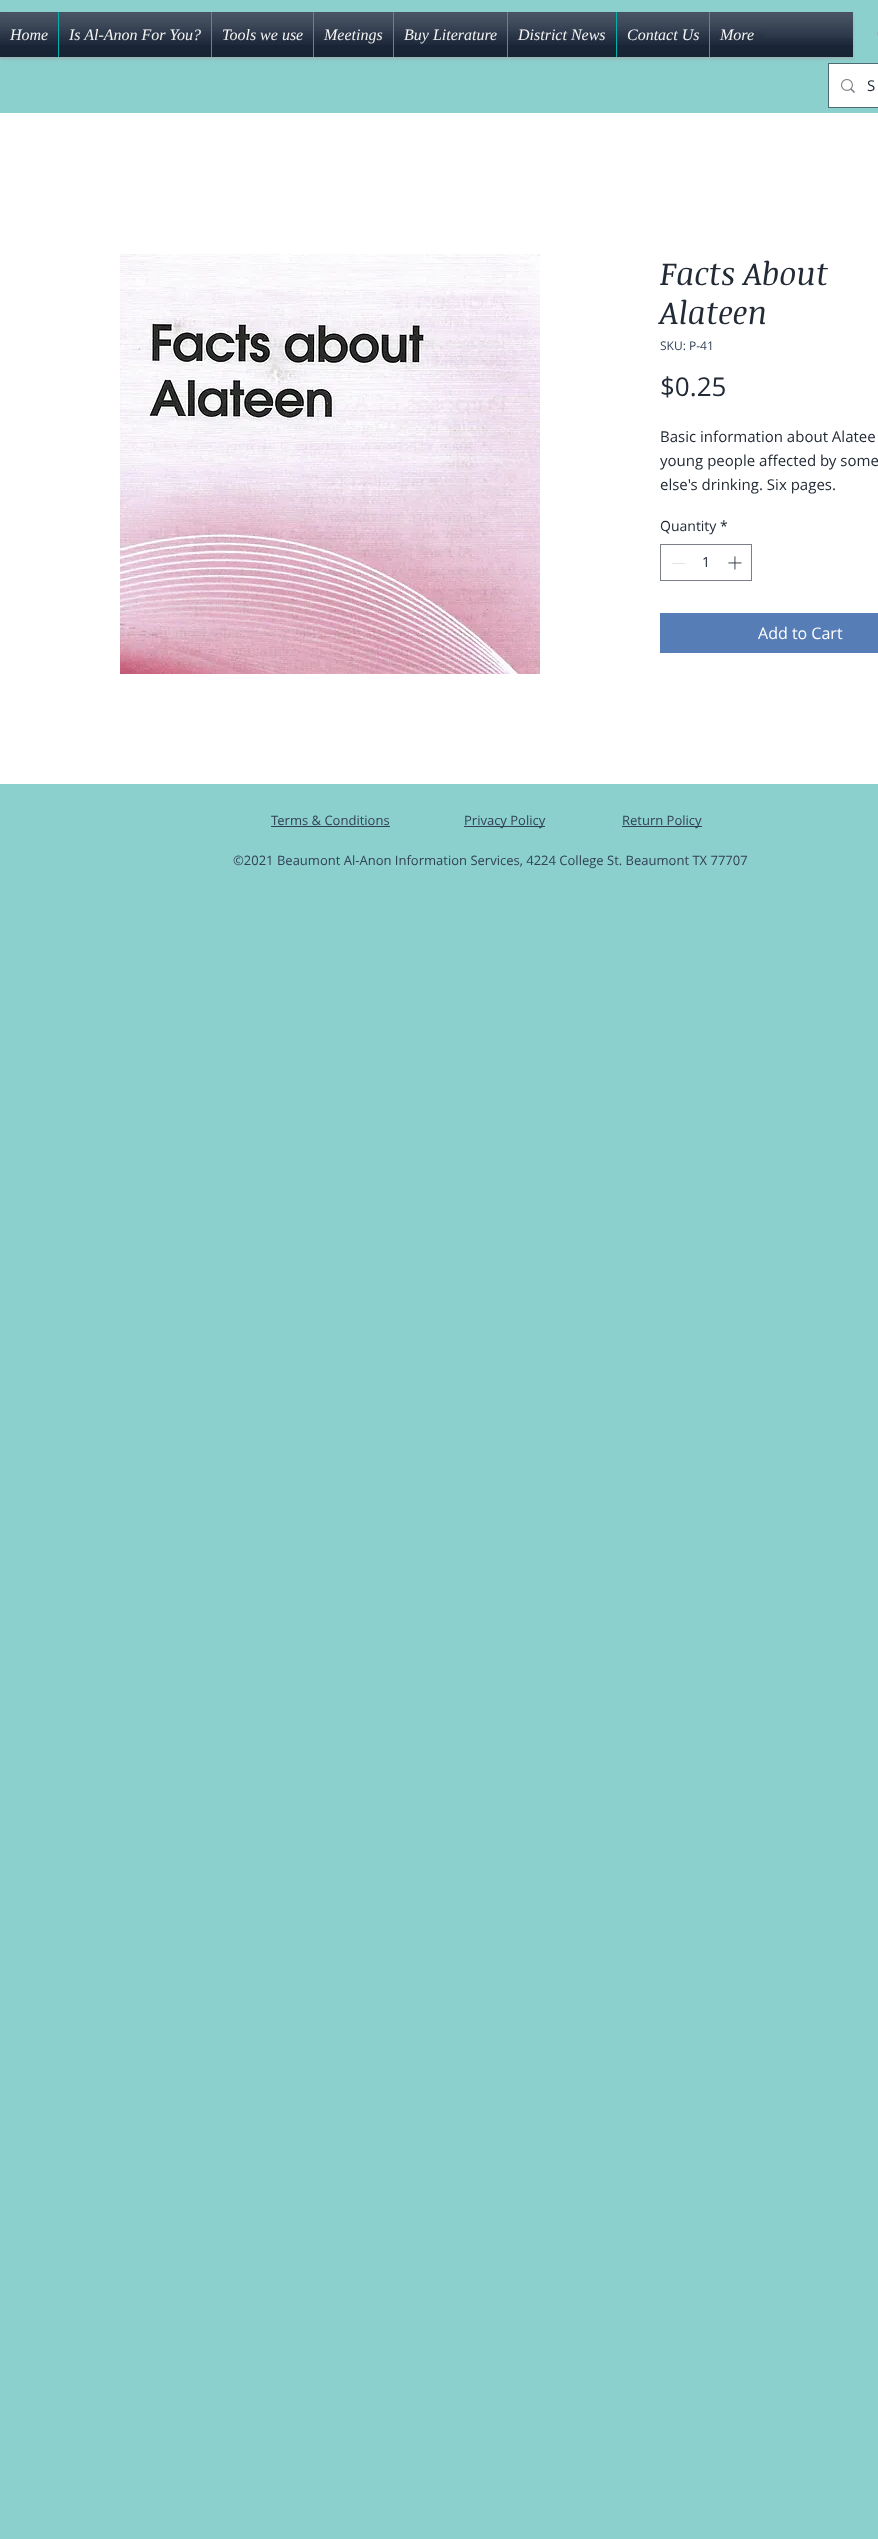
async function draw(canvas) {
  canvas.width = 878
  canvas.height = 2539
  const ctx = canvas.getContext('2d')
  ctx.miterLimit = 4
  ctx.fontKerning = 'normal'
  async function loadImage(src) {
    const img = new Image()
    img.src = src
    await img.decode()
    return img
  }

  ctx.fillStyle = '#8bd0cd'
  ctx.fillRect(0, 0, 878, 2539)
  ctx.fillStyle = '#a29e9e99'
  ctx.filter = 'blur(1.5px)'
  ctx.beginPath()
  ctx.rect(0, 14, 853, 45)
  ctx.fill()
  ctx.filter = 'none'
  ctx.fillStyle = '#1d2a3d'
  ctx.fillRect(710, 12, 143, 45)
  ctx.drawImage(await loadImage('image0.png'), 764, 12, 89, 33)
  ctx.drawImage(await loadImage('image1.png'), 764, 38, 89, 19)
  ctx.fillRect(0, 12, 58, 45)
  ctx.font = 'italic 16px Liberation Serif'
  ctx.fillStyle = '#fff'
  ctx.fillText('Home', 10, 40)
  ctx.drawImage(await loadImage('image2.png'), 0, 12, 58, 33)
  ctx.drawImage(await loadImage('image3.png'), 0, 31, 58, 26)
  ctx.fillStyle = '#1d2a3d'
  ctx.fillRect(59, 12, 152, 45)
  ctx.fillStyle = '#01b1af'
  ctx.fillRect(58, 12, 1, 45)
  ctx.fillStyle = '#fff'
  ctx.fillText('Is Al-Anon For You?', 69, 40)
  ctx.drawImage(await loadImage('image4.png'), 59, 12, 152, 33)
  ctx.drawImage(await loadImage('image5.png'), 59, 31, 152, 26)
  ctx.fillStyle = '#1d2a3d'
  ctx.fillRect(212, 12, 101, 45)
  ctx.fillStyle = '#01b1af'
  ctx.fillRect(211, 12, 1, 45)
  ctx.fillStyle = '#fff'
  ctx.fillText('Tools we use', 222, 40)
  ctx.drawImage(await loadImage('image6.png'), 212, 12, 101, 33)
  ctx.drawImage(await loadImage('image7.png'), 212, 31, 101, 26)
  ctx.fillStyle = '#1d2a3d'
  ctx.fillRect(314, 12, 79, 45)
  ctx.fillStyle = '#01b1af'
  ctx.fillRect(313, 12, 1, 45)
  ctx.fillStyle = '#fff'
  ctx.fillText('Meetings', 324, 40)
  ctx.drawImage(await loadImage('image8.png'), 314, 12, 79, 33)
  ctx.drawImage(await loadImage('image9.png'), 314, 31, 79, 26)
  ctx.fillStyle = '#1d2a3d'
  ctx.fillRect(394, 12, 113, 45)
  ctx.fillStyle = '#01b1af'
  ctx.fillRect(393, 12, 1, 45)
  ctx.fillStyle = '#fff'
  ctx.fillText('Buy Literature', 404, 40)
  ctx.drawImage(await loadImage('image10.png'), 394, 12, 113, 33)
  ctx.drawImage(await loadImage('image11.png'), 394, 31, 113, 26)
  ctx.fillStyle = '#1d2a3d'
  ctx.fillRect(508, 12, 108, 45)
  ctx.fillStyle = '#01b1af'
  ctx.fillRect(507, 12, 1, 45)
  ctx.fillStyle = '#fff'
  ctx.fillText('District News', 518, 40)
  ctx.drawImage(await loadImage('image12.png'), 508, 12, 108, 33)
  ctx.drawImage(await loadImage('image13.png'), 508, 31, 108, 26)
  ctx.fillStyle = '#1d2a3d'
  ctx.fillRect(617, 12, 92, 45)
  ctx.fillStyle = '#01b1af'
  ctx.fillRect(616, 12, 1, 45)
  ctx.fillStyle = '#fff'
  ctx.fillText('Contact Us', 627, 40)
  ctx.drawImage(await loadImage('image14.png'), 617, 12, 92, 33)
  ctx.drawImage(await loadImage('image15.png'), 617, 31, 92, 26)
  ctx.fillStyle = '#01b1af'
  ctx.fillRect(709, 12, 1, 45)
  ctx.fillStyle = '#fff'
  ctx.fillText('More', 720, 40)
  ctx.drawImage(await loadImage('image16.png'), 710, 12, 54, 33)
  ctx.drawImage(await loadImage('image17.png'), 710, 31, 54, 26)
  ctx.drawImage(await loadImage('image18.png'), 877, 32, 1, 4)
  ctx.strokeStyle = '#4c6c72'
  ctx.strokeRect(828.5, 63.5, 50, 44)
  ctx.fillRect(829, 64, 49, 43)
  ctx.drawImage(await loadImage('image19.png'), 841, 79, 14, 14)
  ctx.font = '15px Open Sans'
  ctx.fillStyle = '#222a36'
  ctx.fillText('S', 867, 91)
  ctx.fillStyle = '#fff'
  ctx.fillRect(0, 113, 878, 671)
  ctx.drawImage(await loadImage('image20.png'), 120, 254, 420, 420)
  ctx.font = 'italic 32px Noticia Text'
  ctx.fillStyle = '#222a36'
  ctx.fillText('Facts About', 660, 285)
  ctx.fillText('Alateen', 660, 324)
  ctx.font = '12px Open Sans'
  ctx.fillStyle = '#324157'
  ctx.fillText('SKU: P-41', 660, 350)
  ctx.font = '26px Open Sans'
  ctx.fillStyle = '#222a36'
  ctx.fillText('$0.25', 660, 396)
  ctx.font = '15px Open Sans'
  ctx.fillText('Basic information about Alatee', 660, 442)
  ctx.fillText('young people affected by some', 660, 466)
  ctx.fillText('else\'s drinking. Six pages.', 660, 490)
  ctx.font = '14px Open Sans'
  ctx.fillText('Quantity', 660, 531)
  ctx.fillText('*', 720, 531)
  ctx.strokeStyle = '#7a7f86'
  ctx.strokeRect(660.5, 544.5, 91, 36)
  ctx.fillStyle = '#e3e3e3'
  ctx.fillRect(672, 563, 13, 1)
  ctx.fillStyle = '#222a36'
  ctx.fillText('1', 702, 567)
  ctx.drawImage(await loadImage('image21.png'), 728, 556, 14, 14)
  ctx.fillStyle = '#577db7'
  ctx.fillRect(660, 613, 218, 40)
  ctx.font = '16px Open Sans'
  ctx.fillStyle = '#fff'
  ctx.fillText('Add to Cart', 758, 639)
  ctx.font = '13px Open Sans'
  ctx.fillStyle = '#324157'
  ctx.fillText('Terms & Conditions', 271, 825)
  ctx.fillRect(271, 826, 119, 1)
  ctx.fillRect(464, 826, 81, 1)
  ctx.fillText('Privacy Policy', 464, 825)
  ctx.fillRect(622, 826, 80, 1)
  ctx.fillText('Return Policy', 622, 825)
  ctx.fillText('©2021 Beaumont Al-Anon Information Services, 4224 College St. Beaumont TX 77707', 233, 865)
}

draw(document.querySelector('canvas'))
